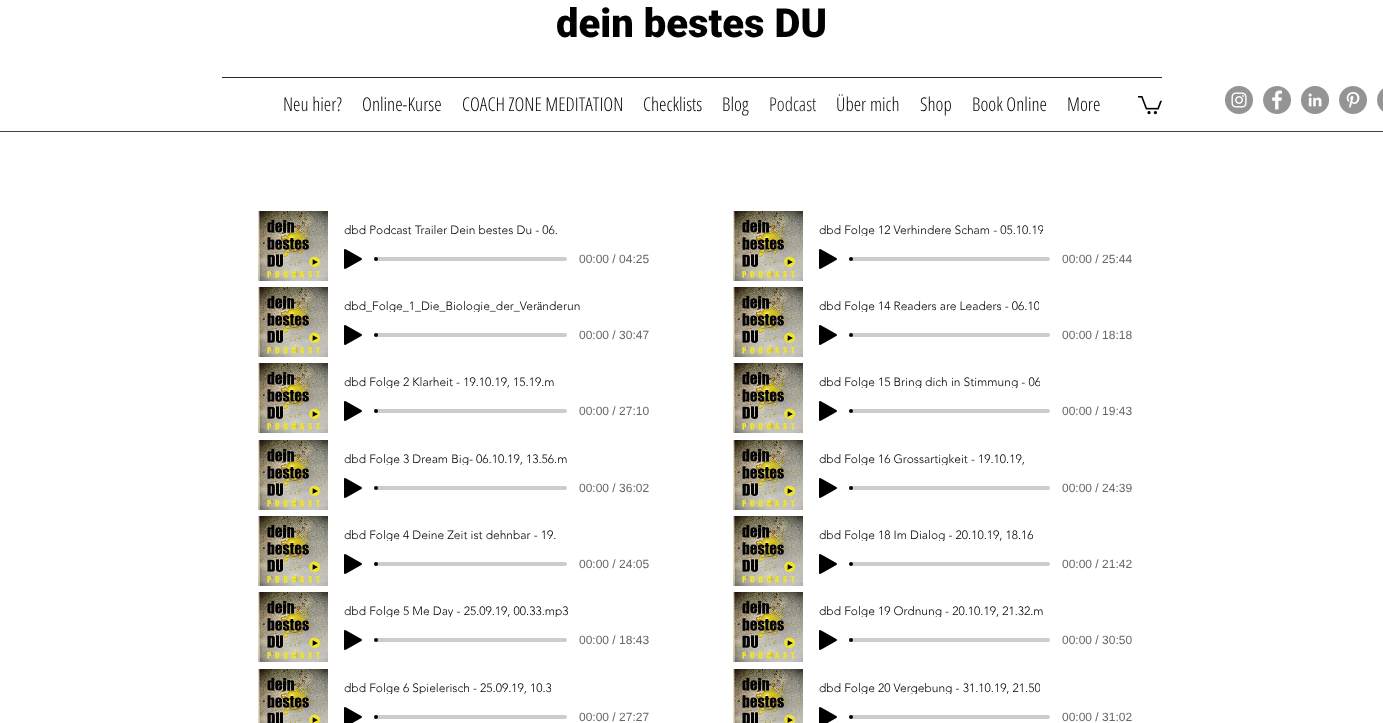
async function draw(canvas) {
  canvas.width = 1383
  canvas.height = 723
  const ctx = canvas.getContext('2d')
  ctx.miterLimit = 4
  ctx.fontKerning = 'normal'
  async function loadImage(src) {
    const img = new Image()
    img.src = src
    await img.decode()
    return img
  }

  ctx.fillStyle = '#fff'
  ctx.fillRect(0, 0, 1383, 723)
  ctx.font = '900 40px Roboto'
  ctx.fillStyle = '#000'
  ctx.fillText('dein bestes DU', 556, 37)
  ctx.fillStyle = '#262626'
  ctx.fillRect(222, 77, 940, 1)
  ctx.font = '300 19px Open Sans Condensed'
  ctx.fillStyle = '#000'
  ctx.fillText('Neu hier?', 283, 111)
  ctx.fillText('Online-Kurse', 362, 111)
  ctx.fillText('COACH ZONE MEDITATION', 462, 111)
  ctx.fillText('Checklists', 643, 111)
  ctx.fillText('Blog', 722, 111)
  ctx.fillStyle = '#191919'
  ctx.fillText('Podcast', 769, 111)
  ctx.fillStyle = '#000'
  ctx.fillText('Über mich', 836, 111)
  ctx.fillText('Shop', 920, 111)
  ctx.fillText('Book Online', 972, 111)
  ctx.fillText('More', 1067, 111)
  ctx.drawImage(await loadImage('image0.png'), 1138, 96, 24, 19)
  ctx.drawImage(await loadImage('image1.png'), 1225, 86, 28, 28)
  ctx.drawImage(await loadImage('image2.png'), 1263, 86, 28, 28)
  ctx.drawImage(await loadImage('image3.png'), 1301, 86, 28, 28)
  ctx.drawImage(await loadImage('image4.png'), 1339, 86, 28, 28)
  ctx.drawImage(await loadImage('image5.png'), 1377, 88, 6, 24)
  ctx.fillStyle = '#424242'
  ctx.fillRect(0, 131, 1383, 1)
  ctx.drawImage(await loadImage('image6.png'), 258, 211, 70, 70)
  ctx.font = '300 12px "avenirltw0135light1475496"'
  ctx.fillStyle = '#000'
  ctx.fillText('dbd Podcast Trailer Dein bestes Du - 06.', 344, 234)
  ctx.drawImage(await loadImage('image7.png'), 344, 249, 18, 20)
  ctx.fillStyle = '#ccc'
  ctx.beginPath()
  ctx.roundRect(376, 257, 191, 4, 2)
  ctx.fill()
  ctx.fillStyle = '#000'
  ctx.beginPath()
  ctx.arc(376, 259, 2, 0, 2 * Math.PI)
  ctx.fill()
  ctx.font = '12px Liberation Sans'
  ctx.fillStyle = '#666'
  ctx.fillText('00:00 / 04:25', 579, 263)
  ctx.drawImage(await loadImage('image6.png'), 733, 211, 70, 70)
  ctx.save()
  ctx.beginPath()
  ctx.rect(819, 224, 224, 12)
  ctx.clip()
  ctx.font = '300 12px "avenirltw0135light1475496"'
  ctx.fillStyle = '#000'
  ctx.fillText('dbd Folge 12 Verhindere Scham - 05.10.19', 819, 234)
  ctx.restore()
  ctx.drawImage(await loadImage('image7.png'), 819, 249, 18, 20)
  ctx.fillStyle = '#ccc'
  ctx.beginPath()
  ctx.roundRect(851, 257, 199, 4, 2)
  ctx.fill()
  ctx.fillStyle = '#000'
  ctx.beginPath()
  ctx.arc(851, 259, 2, 0, 2 * Math.PI)
  ctx.fill()
  ctx.fillStyle = '#666'
  ctx.fillText('00:00 / 25:44', 1062, 263)
  ctx.drawImage(await loadImage('image6.png'), 258, 287, 70, 70)
  ctx.save()
  ctx.beginPath()
  ctx.rect(344, 300, 237, 12)
  ctx.clip()
  ctx.font = '300 12px "avenirltw0135light1475496"'
  ctx.fillStyle = '#000'
  ctx.fillText('dbd_Folge_1_Die_Biologie_der_Veränderun', 344, 310)
  ctx.restore()
  ctx.drawImage(await loadImage('image7.png'), 344, 325, 18, 20)
  ctx.fillStyle = '#ccc'
  ctx.beginPath()
  ctx.roundRect(376, 333, 191, 4, 2)
  ctx.fill()
  ctx.fillStyle = '#000'
  ctx.beginPath()
  ctx.arc(376, 335, 2, 0, 2 * Math.PI)
  ctx.fill()
  ctx.fillStyle = '#666'
  ctx.fillText('00:00 / 30:47', 579, 339)
  ctx.drawImage(await loadImage('image6.png'), 733, 287, 70, 70)
  ctx.save()
  ctx.beginPath()
  ctx.rect(819, 300, 220, 12)
  ctx.clip()
  ctx.font = '300 12px "avenirltw0135light1475496"'
  ctx.fillStyle = '#000'
  ctx.fillText('dbd Folge 14 Readers are Leaders - 06.10', 819, 310)
  ctx.restore()
  ctx.drawImage(await loadImage('image7.png'), 819, 325, 18, 20)
  ctx.fillStyle = '#ccc'
  ctx.beginPath()
  ctx.roundRect(851, 333, 199, 4, 2)
  ctx.fill()
  ctx.fillStyle = '#000'
  ctx.beginPath()
  ctx.arc(851, 335, 2, 0, 2 * Math.PI)
  ctx.fill()
  ctx.fillStyle = '#666'
  ctx.fillText('00:00 / 18:18', 1062, 339)
  ctx.drawImage(await loadImage('image6.png'), 258, 363, 70, 70)
  ctx.save()
  ctx.beginPath()
  ctx.rect(344, 376, 210, 12)
  ctx.clip()
  ctx.font = '300 12px "avenirltw0135light1475496"'
  ctx.fillStyle = '#000'
  ctx.fillText('dbd Folge 2 Klarheit - 19.10.19, 15.19.m', 344, 386)
  ctx.restore()
  ctx.drawImage(await loadImage('image7.png'), 344, 401, 18, 20)
  ctx.fillStyle = '#ccc'
  ctx.beginPath()
  ctx.roundRect(376, 409, 191, 4, 2)
  ctx.fill()
  ctx.fillStyle = '#000'
  ctx.beginPath()
  ctx.arc(376, 411, 2, 0, 2 * Math.PI)
  ctx.fill()
  ctx.fillStyle = '#666'
  ctx.fillText('00:00 / 27:10', 579, 415)
  ctx.drawImage(await loadImage('image6.png'), 733, 363, 70, 70)
  ctx.save()
  ctx.beginPath()
  ctx.rect(819, 376, 221, 12)
  ctx.clip()
  ctx.font = '300 12px "avenirltw0135light1475496"'
  ctx.fillStyle = '#000'
  ctx.fillText('dbd Folge 15 Bring dich in Stimmung - 06', 819, 386)
  ctx.restore()
  ctx.drawImage(await loadImage('image7.png'), 819, 401, 18, 20)
  ctx.fillStyle = '#ccc'
  ctx.beginPath()
  ctx.roundRect(851, 409, 199, 4, 2)
  ctx.fill()
  ctx.fillStyle = '#000'
  ctx.beginPath()
  ctx.arc(851, 411, 2, 0, 2 * Math.PI)
  ctx.fill()
  ctx.fillStyle = '#666'
  ctx.fillText('00:00 / 19:43', 1062, 415)
  ctx.drawImage(await loadImage('image6.png'), 258, 440, 70, 70)
  ctx.save()
  ctx.beginPath()
  ctx.rect(344, 453, 223, 12)
  ctx.clip()
  ctx.font = '300 12px "avenirltw0135light1475496"'
  ctx.fillStyle = '#000'
  ctx.fillText('dbd Folge 3 Dream Big- 06.10.19, 13.56.m', 344, 463)
  ctx.restore()
  ctx.drawImage(await loadImage('image7.png'), 344, 478, 18, 20)
  ctx.fillStyle = '#ccc'
  ctx.beginPath()
  ctx.roundRect(376, 486, 191, 4, 2)
  ctx.fill()
  ctx.fillStyle = '#000'
  ctx.beginPath()
  ctx.arc(376, 488, 2, 0, 2 * Math.PI)
  ctx.fill()
  ctx.fillStyle = '#666'
  ctx.fillText('00:00 / 36:02', 579, 492)
  ctx.drawImage(await loadImage('image6.png'), 733, 440, 70, 70)
  ctx.save()
  ctx.beginPath()
  ctx.rect(819, 453, 205, 12)
  ctx.clip()
  ctx.font = '300 12px "avenirltw0135light1475496"'
  ctx.fillStyle = '#000'
  ctx.fillText('dbd Folge 16 Grossartigkeit - 19.10.19,', 819, 463)
  ctx.restore()
  ctx.drawImage(await loadImage('image7.png'), 819, 478, 18, 20)
  ctx.fillStyle = '#ccc'
  ctx.beginPath()
  ctx.roundRect(851, 486, 199, 4, 2)
  ctx.fill()
  ctx.fillStyle = '#000'
  ctx.beginPath()
  ctx.arc(851, 488, 2, 0, 2 * Math.PI)
  ctx.fill()
  ctx.fillStyle = '#666'
  ctx.fillText('00:00 / 24:39', 1062, 492)
  ctx.drawImage(await loadImage('image6.png'), 258, 516, 70, 70)
  ctx.save()
  ctx.beginPath()
  ctx.rect(344, 529, 212, 12)
  ctx.clip()
  ctx.font = '300 12px "avenirltw0135light1475496"'
  ctx.fillStyle = '#000'
  ctx.fillText('dbd Folge 4 Deine Zeit ist dehnbar - 19.', 344, 539)
  ctx.restore()
  ctx.drawImage(await loadImage('image7.png'), 344, 554, 18, 20)
  ctx.fillStyle = '#ccc'
  ctx.beginPath()
  ctx.roundRect(376, 562, 191, 4, 2)
  ctx.fill()
  ctx.fillStyle = '#000'
  ctx.beginPath()
  ctx.arc(376, 564, 2, 0, 2 * Math.PI)
  ctx.fill()
  ctx.fillStyle = '#666'
  ctx.fillText('00:00 / 24:05', 579, 568)
  ctx.drawImage(await loadImage('image6.png'), 733, 516, 70, 70)
  ctx.save()
  ctx.beginPath()
  ctx.rect(819, 529, 214, 12)
  ctx.clip()
  ctx.font = '300 12px "avenirltw0135light1475496"'
  ctx.fillStyle = '#000'
  ctx.fillText('dbd Folge 18 Im Dialog - 20.10.19, 18.16', 819, 539)
  ctx.restore()
  ctx.drawImage(await loadImage('image7.png'), 819, 554, 18, 20)
  ctx.fillStyle = '#ccc'
  ctx.beginPath()
  ctx.roundRect(851, 562, 199, 4, 2)
  ctx.fill()
  ctx.fillStyle = '#000'
  ctx.beginPath()
  ctx.arc(851, 564, 2, 0, 2 * Math.PI)
  ctx.fill()
  ctx.fillStyle = '#666'
  ctx.fillText('00:00 / 21:42', 1062, 568)
  ctx.drawImage(await loadImage('image6.png'), 258, 592, 70, 70)
  ctx.save()
  ctx.beginPath()
  ctx.rect(344, 605, 224, 12)
  ctx.clip()
  ctx.font = '300 12px "avenirltw0135light1475496"'
  ctx.fillStyle = '#000'
  ctx.fillText('dbd Folge 5 Me Day - 25.09.19, 00.33.mp3', 344, 615)
  ctx.restore()
  ctx.drawImage(await loadImage('image7.png'), 344, 630, 18, 20)
  ctx.fillStyle = '#ccc'
  ctx.beginPath()
  ctx.roundRect(376, 638, 191, 4, 2)
  ctx.fill()
  ctx.fillStyle = '#000'
  ctx.beginPath()
  ctx.arc(376, 640, 2, 0, 2 * Math.PI)
  ctx.fill()
  ctx.fillStyle = '#666'
  ctx.fillText('00:00 / 18:43', 579, 644)
  ctx.drawImage(await loadImage('image6.png'), 733, 592, 70, 70)
  ctx.save()
  ctx.beginPath()
  ctx.rect(819, 605, 224, 12)
  ctx.clip()
  ctx.font = '300 12px "avenirltw0135light1475496"'
  ctx.fillStyle = '#000'
  ctx.fillText('dbd Folge 19 Ordnung - 20.10.19, 21.32.m', 819, 615)
  ctx.restore()
  ctx.drawImage(await loadImage('image7.png'), 819, 630, 18, 20)
  ctx.fillStyle = '#ccc'
  ctx.beginPath()
  ctx.roundRect(851, 638, 199, 4, 2)
  ctx.fill()
  ctx.fillStyle = '#000'
  ctx.beginPath()
  ctx.arc(851, 640, 2, 0, 2 * Math.PI)
  ctx.fill()
  ctx.fillStyle = '#666'
  ctx.fillText('00:00 / 30:50', 1062, 644)
  ctx.drawImage(await loadImage('image8.png'), 258, 669, 70, 54)
  ctx.save()
  ctx.beginPath()
  ctx.rect(344, 682, 207, 12)
  ctx.clip()
  ctx.font = '300 12px "avenirltw0135light1475496"'
  ctx.fillStyle = '#000'
  ctx.fillText('dbd Folge 6 Spielerisch - 25.09.19, 10.3', 344, 692)
  ctx.restore()
  ctx.drawImage(await loadImage('image9.png'), 344, 707, 18, 16)
  ctx.fillStyle = '#ccc'
  ctx.beginPath()
  ctx.roundRect(376, 715, 191, 4, 2)
  ctx.fill()
  ctx.fillStyle = '#000'
  ctx.beginPath()
  ctx.arc(376, 717, 2, 0, 2 * Math.PI)
  ctx.fill()
  ctx.fillStyle = '#666'
  ctx.fillText('00:00 / 27:27', 579, 721)
  ctx.drawImage(await loadImage('image8.png'), 733, 669, 70, 54)
  ctx.save()
  ctx.beginPath()
  ctx.rect(819, 682, 221, 12)
  ctx.clip()
  ctx.font = '300 12px "avenirltw0135light1475496"'
  ctx.fillStyle = '#000'
  ctx.fillText('dbd Folge 20 Vergebung - 31.10.19, 21.50', 819, 692)
  ctx.restore()
  ctx.drawImage(await loadImage('image9.png'), 819, 707, 18, 16)
  ctx.fillStyle = '#ccc'
  ctx.beginPath()
  ctx.roundRect(851, 715, 199, 4, 2)
  ctx.fill()
  ctx.fillStyle = '#000'
  ctx.beginPath()
  ctx.arc(851, 717, 2, 0, 2 * Math.PI)
  ctx.fill()
  ctx.fillStyle = '#666'
  ctx.fillText('00:00 / 31:02', 1062, 721)
}

draw(document.querySelector('canvas'))
